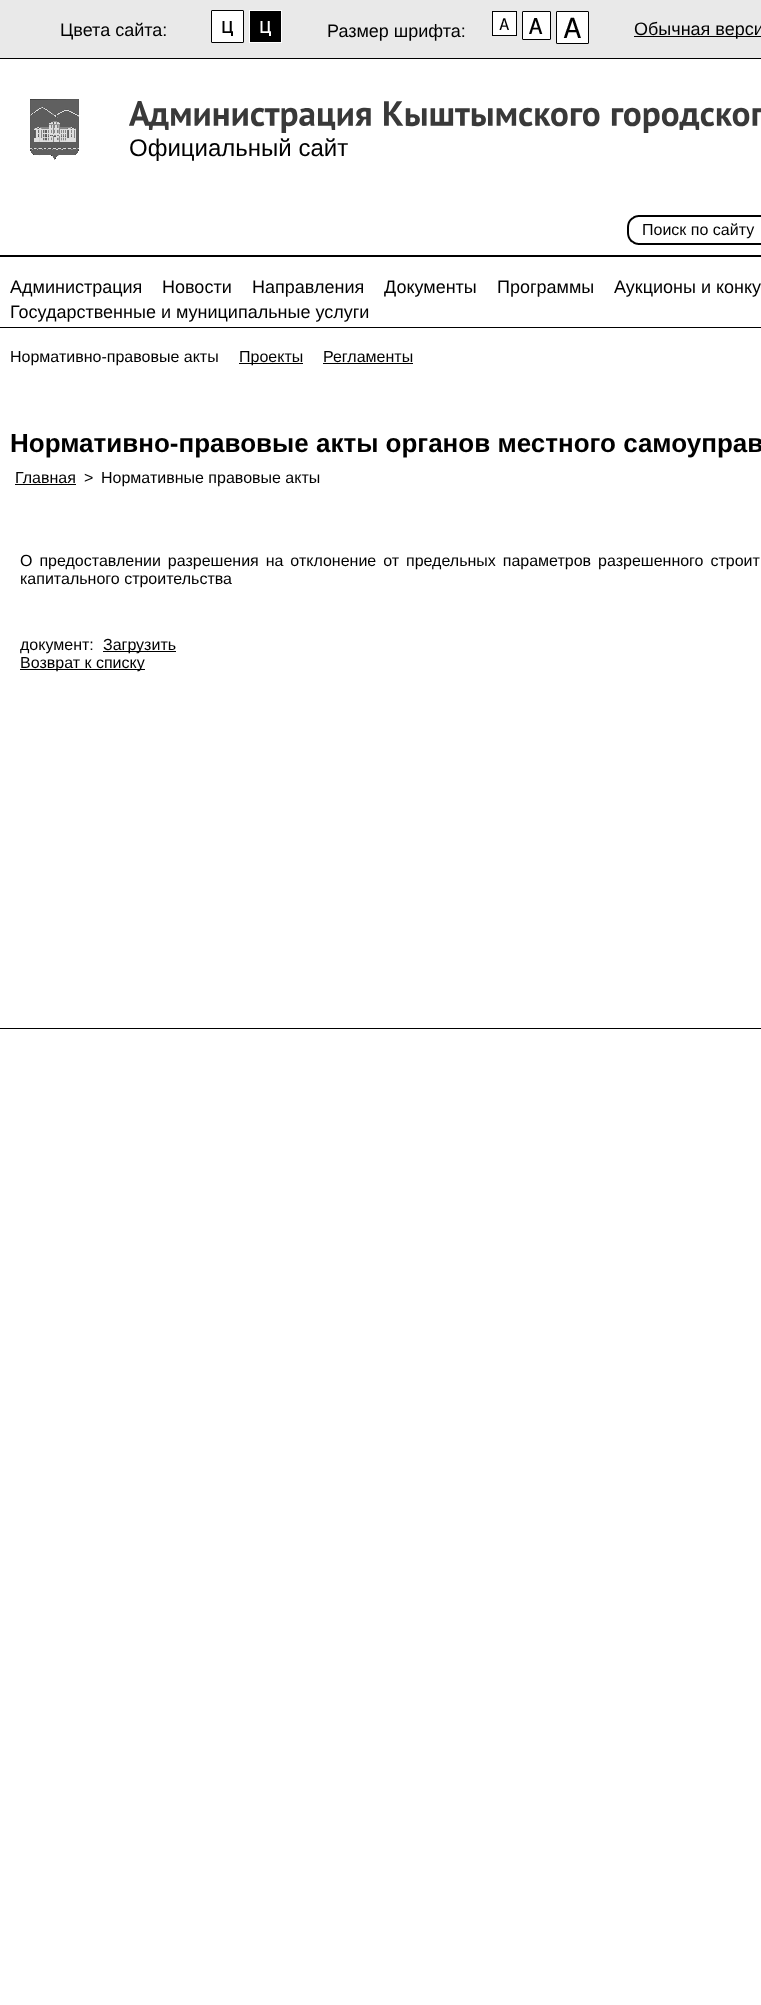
async function draw(canvas) {
  canvas.width = 761
  canvas.height = 2005
  const ctx = canvas.getContext('2d')
  ctx.miterLimit = 4
  ctx.fontKerning = 'normal'
  async function loadImage(src) {
    const img = new Image()
    img.src = src
    await img.decode()
    return img
  }

  ctx.fillStyle = '#fff'
  ctx.fillRect(0, 0, 761, 2005)
  ctx.fillStyle = '#e9e9e9'
  ctx.fillRect(0, 0, 761, 58)
  ctx.fillStyle = '#000'
  ctx.fillRect(0, 58, 761, 1)
  ctx.font = '18px Liberation Sans'
  ctx.fillText('Цвета сайта:', 60, 36)
  ctx.drawImage(await loadImage('image0.png'), 211, 10, 33, 33)
  ctx.drawImage(await loadImage('image1.png'), 249, 10, 33, 33)
  ctx.fillText('Размер шрифта:', 327, 37)
  ctx.drawImage(await loadImage('image2.png'), 492, 11, 25, 25)
  ctx.drawImage(await loadImage('image3.png'), 522, 11, 29, 29)
  ctx.drawImage(await loadImage('image4.png'), 556, 11, 33, 33)
  ctx.fillRect(634, 36, 127, 1)
  ctx.fillText('Обычная верси', 634, 35)
  ctx.drawImage(await loadImage('image5.png'), 30, 99, 49, 61)
  ctx.drawImage(await loadImage('image6.png'), 129, 101, 242, 32)
  ctx.drawImage(await loadImage('image7.png'), 384, 101, 216, 26)
  ctx.drawImage(await loadImage('image8.png'), 611, 107, 150, 26)
  ctx.font = '24px Liberation Sans'
  ctx.fillText('Официальный сайт', 129, 156)
  ctx.drawImage(await loadImage('image9.png'), 627, 215, 134, 30)
  ctx.font = '16px Liberation Sans'
  ctx.fillText('Поиск по сайту', 642, 235)
  ctx.fillRect(0, 255, 761, 2)
  ctx.fillRect(0, 327, 761, 1)
  ctx.font = '18px Liberation Sans'
  ctx.fillText('Администрация', 10, 293)
  ctx.fillText('Новости', 162, 293)
  ctx.fillText('Направления', 252, 293)
  ctx.fillText('Документы', 384, 293)
  ctx.fillText('Программы', 497, 293)
  ctx.fillText('Аукционы и конку', 614, 293)
  ctx.fillText('Государственные и муниципальные услуги', 10, 318)
  ctx.font = '16px Liberation Sans'
  ctx.fillText('Нормативно-правовые акты', 10, 362)
  ctx.fillRect(239, 363, 64, 1)
  ctx.fillText('Проекты', 239, 362)
  ctx.fillText('Регламенты', 323, 362)
  ctx.fillRect(323, 363, 90, 1)
  ctx.font = 'bold 26px Liberation Sans'
  ctx.fillText('Нормативно-правовые акты органов местного самоуправ', 10, 452)
  ctx.font = '16px Liberation Sans'
  ctx.fillText('Главная', 15, 483)
  ctx.fillRect(15, 484, 61, 1)
  ctx.fillText('>', 84, 483)
  ctx.fillText('Нормативные правовые акты', 101, 483)
  ctx.wordSpacing = '2.5px'
  ctx.fillText('О предоставлении разрешения на отклонение от предельных параметров разрешенного строит', 20, 566)
  ctx.wordSpacing = '0px'
  ctx.fillText('капитального строительства', 20, 584)
  ctx.fillText('документ:', 20, 650)
  ctx.fillRect(103, 651, 73, 1)
  ctx.fillText('Загрузить', 103, 650)
  ctx.fillRect(20, 669, 125, 1)
  ctx.fillText('Возврат к списку', 20, 668)
  ctx.fillRect(0, 1028, 761, 1)
}

draw(document.querySelector('canvas'))
